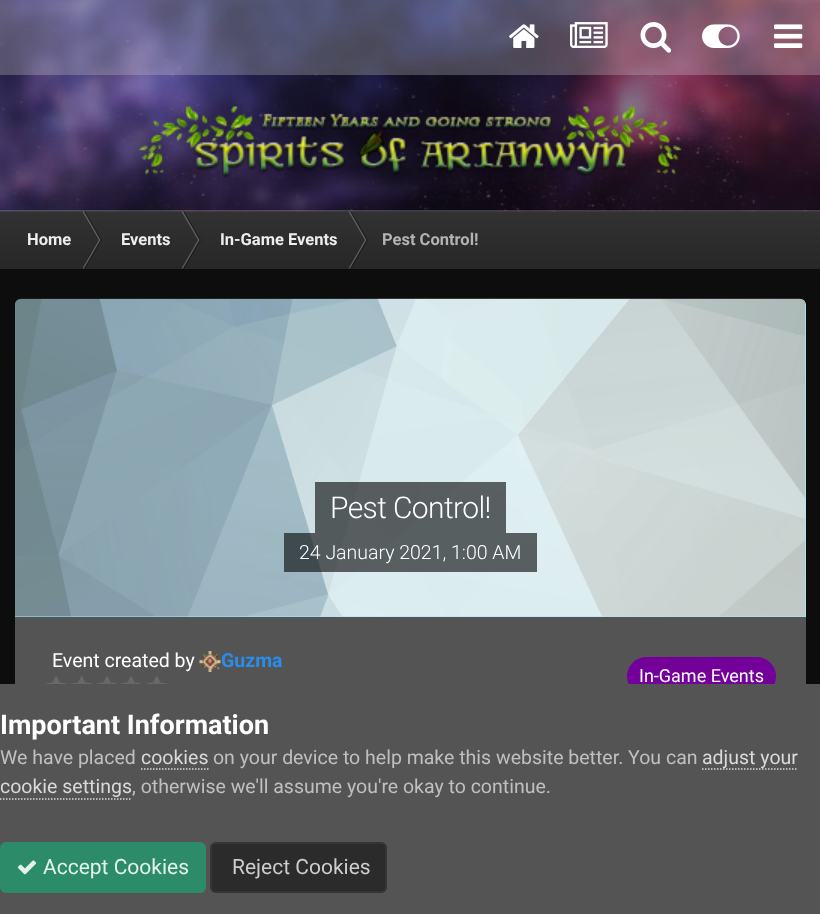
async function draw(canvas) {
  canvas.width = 820
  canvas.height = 914
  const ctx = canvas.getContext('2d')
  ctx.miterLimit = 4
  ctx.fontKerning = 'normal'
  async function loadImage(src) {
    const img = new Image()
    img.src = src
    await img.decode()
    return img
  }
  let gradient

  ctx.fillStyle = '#0d0d0d'
  ctx.fillRect(0, 0, 820, 914)
  ctx.drawImage(await loadImage('image0.png'), 0, 0, 820, 212)
  ctx.drawImage(await loadImage('image1.png'), 0, 0, 820, 212)
  ctx.fillStyle = '#c8c8c84d'
  ctx.fillRect(0, 0, 820, 75)
  ctx.drawImage(await loadImage('image2.png'), 509, 24, 30, 24)
  ctx.drawImage(await loadImage('image3.png'), 570, 22, 38, 26)
  ctx.drawImage(await loadImage('image4.png'), 640, 22, 32, 31)
  ctx.drawImage(await loadImage('image5.png'), 702, 24, 38, 24)
  ctx.drawImage(await loadImage('image6.png'), 774, 24, 29, 24)
  ctx.fillStyle = '#ffffff33'
  ctx.fillRect(0, 210, 820, 2)
  ctx.drawImage(await loadImage('image7.png'), 139, 106, 543, 72)
  gradient = ctx.createLinearGradient(410, 211, 410, 269)
  gradient.addColorStop(0, '#323232')
  gradient.addColorStop(1, '#272727')
  ctx.fillStyle = gradient
  ctx.fillRect(0, 212, 820, 57)
  ctx.font = 'bold 16.5px Roboto'
  ctx.fillStyle = '#ededed'
  ctx.fillText('Home', 27, 245)
  ctx.fillStyle = '#ffffff40'
  ctx.beginPath()
  ctx.moveTo(82.5, 211.5)
  ctx.lineTo(84, 211.5)
  ctx.lineTo(100.5, 240)
  ctx.lineTo(99, 240)
  ctx.closePath()
  ctx.fill()
  ctx.fillStyle = '#0000004d'
  ctx.beginPath()
  ctx.moveTo(84, 211.5)
  ctx.lineTo(85.5, 211.5)
  ctx.lineTo(102, 240)
  ctx.lineTo(100.5, 240)
  ctx.closePath()
  ctx.fill()
  ctx.fillStyle = '#ffffff40'
  ctx.beginPath()
  ctx.moveTo(82.5, 268.5)
  ctx.lineTo(84, 268.5)
  ctx.lineTo(100.5, 240)
  ctx.lineTo(99, 240)
  ctx.closePath()
  ctx.fill()
  ctx.fillStyle = '#0000004d'
  ctx.beginPath()
  ctx.moveTo(84, 268.5)
  ctx.lineTo(85.5, 268.5)
  ctx.lineTo(102, 240)
  ctx.lineTo(100.5, 240)
  ctx.closePath()
  ctx.fill()
  ctx.fillStyle = '#ededed'
  ctx.fillText('Events', 121, 245)
  ctx.fillStyle = '#ffffff40'
  ctx.beginPath()
  ctx.moveTo(181.5, 211.5)
  ctx.lineTo(183, 211.5)
  ctx.lineTo(199.5, 240)
  ctx.lineTo(198, 240)
  ctx.closePath()
  ctx.fill()
  ctx.fillStyle = '#0000004d'
  ctx.beginPath()
  ctx.moveTo(183, 211.5)
  ctx.lineTo(184.5, 211.5)
  ctx.lineTo(201, 240)
  ctx.lineTo(199.5, 240)
  ctx.closePath()
  ctx.fill()
  ctx.fillStyle = '#ffffff40'
  ctx.beginPath()
  ctx.moveTo(181.5, 268.5)
  ctx.lineTo(183, 268.5)
  ctx.lineTo(199.5, 240)
  ctx.lineTo(198, 240)
  ctx.closePath()
  ctx.fill()
  ctx.fillStyle = '#0000004d'
  ctx.beginPath()
  ctx.moveTo(183, 268.5)
  ctx.lineTo(184.5, 268.5)
  ctx.lineTo(201, 240)
  ctx.lineTo(199.5, 240)
  ctx.closePath()
  ctx.fill()
  ctx.fillStyle = '#ededed'
  ctx.fillText('In-Game Events', 220, 245)
  ctx.fillStyle = '#ffffff40'
  ctx.beginPath()
  ctx.moveTo(348.5, 211.5)
  ctx.lineTo(350, 211.5)
  ctx.lineTo(366.5, 240)
  ctx.lineTo(365, 240)
  ctx.closePath()
  ctx.fill()
  ctx.fillStyle = '#0000004d'
  ctx.beginPath()
  ctx.moveTo(350, 211.5)
  ctx.lineTo(351.5, 211.5)
  ctx.lineTo(368, 240)
  ctx.lineTo(366.5, 240)
  ctx.closePath()
  ctx.fill()
  ctx.fillStyle = '#ffffff40'
  ctx.beginPath()
  ctx.moveTo(348.5, 268.5)
  ctx.lineTo(350, 268.5)
  ctx.lineTo(366.5, 240)
  ctx.lineTo(365, 240)
  ctx.closePath()
  ctx.fill()
  ctx.fillStyle = '#0000004d'
  ctx.beginPath()
  ctx.moveTo(350, 268.5)
  ctx.lineTo(351.5, 268.5)
  ctx.lineTo(368, 240)
  ctx.lineTo(366.5, 240)
  ctx.closePath()
  ctx.fill()
  ctx.fillStyle = '#b3b3b3'
  ctx.fillText('Pest Control!', 382, 245)
  ctx.fillStyle = '#9ef'
  ctx.beginPath()
  ctx.roundRect(15, 299, 791, 318, [6, 6, 0, 0])
  ctx.fill()
  ctx.drawImage(await loadImage('image8.png'), 15, 298, 791, 319)
  ctx.fillStyle = '#00000099'
  ctx.fillRect(315, 482, 191, 51)
  ctx.letterSpacing = '-0.6px'
  ctx.font = '300 30px Roboto'
  ctx.fillStyle = '#fff'
  ctx.fillText('Pest Control!', 330, 518)
  ctx.fillStyle = '#00000099'
  ctx.fillRect(284, 533, 253, 39)
  ctx.letterSpacing = '0px'
  ctx.font = '300 19.5px Roboto'
  ctx.fillStyle = '#fff'
  ctx.fillText('24 January 2021, 1:00 AM', 299, 559)
  ctx.fillStyle = '#545454'
  ctx.fillRect(15, 617, 791, 67)
  ctx.font = '19.5px Roboto'
  ctx.fillStyle = '#fff'
  ctx.fillText('Event created by', 52, 667)
  ctx.drawImage(await loadImage('image9.png'), 199, 651, 22, 21)
  ctx.font = 'bold 19.5px Roboto'
  ctx.fillStyle = '#298deb'
  ctx.fillText('Guzma', 221, 667)
  ctx.drawImage(await loadImage('image10.png'), 45, 676, 22, 8)
  ctx.drawImage(await loadImage('image11.png'), 70, 676, 23, 8)
  ctx.drawImage(await loadImage('image10.png'), 96, 676, 22, 8)
  ctx.drawImage(await loadImage('image10.png'), 120, 676, 22, 8)
  ctx.drawImage(await loadImage('image11.png'), 145, 676, 23, 8)
  ctx.fillStyle = '#730099'
  ctx.beginPath()
  ctx.roundRect(627, 657, 149, 39, 19.5)
  ctx.fill()
  ctx.font = '18px Roboto'
  ctx.fillStyle = '#fff'
  ctx.fillText('In-Game Events', 639, 682)
  ctx.fillStyle = '#545454'
  ctx.fillRect(0, 684, 820, 230)
  ctx.font = 'bold 27px Roboto'
  ctx.fillStyle = '#fff'
  ctx.fillText('Important Information', 0, 734)
  ctx.font = '19.5px Roboto'
  ctx.fillStyle = '#c0c0c0'
  ctx.fillText('We have placed', 0, 764)
  ctx.fillStyle = '#dadada'
  ctx.fillText('cookies', 141, 764)
  ctx.beginPath()
  ctx.moveTo(141, 769)
  ctx.lineTo(208.5, 769)
  ctx.strokeStyle = '#dadada'
  ctx.lineWidth = 1.5
  ctx.setLineDash([1.5, 1.5])
  ctx.stroke()
  ctx.fillStyle = '#c0c0c0'
  ctx.fillText('on your device to help make this website better. You can', 213, 764)
  ctx.beginPath()
  ctx.moveTo(702, 769)
  ctx.lineTo(798, 769)
  ctx.stroke()
  ctx.fillStyle = '#dadada'
  ctx.fillText('adjust your', 702, 764)
  ctx.fillText('cookie settings', 0, 793)
  ctx.beginPath()
  ctx.moveTo(0, 799)
  ctx.lineTo(132, 799)
  ctx.stroke()
  ctx.fillStyle = '#c0c0c0'
  ctx.fillText(', otherwise we\'ll assume you\'re okay to continue.', 132, 793)
  ctx.fillStyle = '#2c8c69'
  ctx.beginPath()
  ctx.roundRect(0, 842, 206, 51, 6)
  ctx.fill()
  ctx.drawImage(await loadImage('image12.png'), 17, 860, 20, 15)
  ctx.font = '21px Roboto'
  ctx.fillStyle = '#e3f3ec'
  ctx.fillText('Accept Cookies', 43, 874)
  ctx.fillStyle = '#2b2b2b'
  ctx.beginPath()
  ctx.roundRect(210, 842, 177, 51, 6)
  ctx.fill()
  ctx.beginPath()
  ctx.roundRect(211, 843, 175, 49, 5)
  ctx.strokeStyle = '#cccccc12'
  ctx.lineWidth = 2
  ctx.setLineDash([])
  ctx.stroke()
  ctx.fillStyle = '#ccc'
  ctx.fillText('Reject Cookies', 232, 874)
}

draw(document.querySelector('canvas'))
